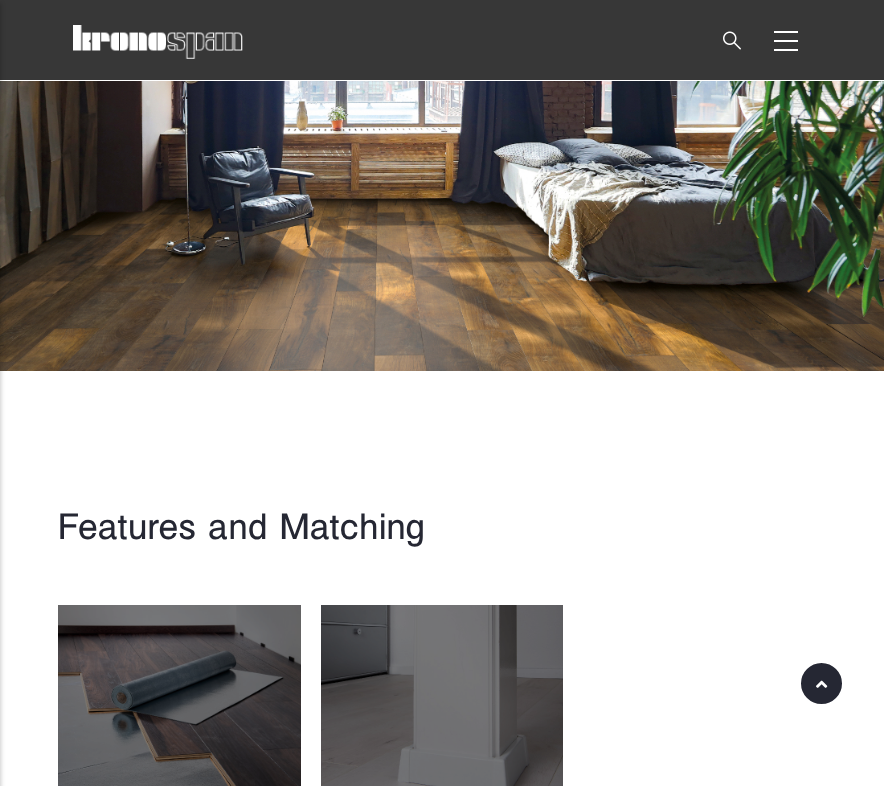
async function draw(canvas) {
  canvas.width = 884
  canvas.height = 786
  const ctx = canvas.getContext('2d')
  ctx.miterLimit = 4
  ctx.fontKerning = 'normal'
  async function loadImage(src) {
    const img = new Image()
    img.src = src
    await img.decode()
    return img
  }

  ctx.fillStyle = '#fff'
  ctx.fillRect(0, 0, 884, 786)
  ctx.fillStyle = '#373737'
  ctx.fillRect(0, 0, 884, 80)
  ctx.drawImage(await loadImage('image2.png'), 0, 81, 884, 290)
  ctx.fillStyle = '#00000033'
  ctx.filter = 'blur(2px)'
  ctx.beginPath()
  ctx.rect(-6, 3, 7, 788)
  ctx.fill()
  ctx.filter = 'none'
  ctx.fillStyle = '#fff'
  ctx.fillRect(774, 31, 24, 2)
  ctx.fillRect(774, 40, 24, 2)
  ctx.fillRect(774, 49, 24, 2)
  ctx.drawImage(await loadImage('image0.png'), 73, 25, 170, 34)
  ctx.drawImage(await loadImage('image1.png'), 723, 31, 18, 19)
  ctx.font = '40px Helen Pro'
  ctx.fillStyle = '#252733'
  ctx.fillText('Features and Matching', 58, 539)
  ctx.drawImage(await loadImage('image3.png'), 58, 605, 243, 181)
  ctx.drawImage(await loadImage('image4.png'), 321, 605, 242, 181)
  ctx.beginPath()
  ctx.arc(821.5, 683.5, 21.5, 0, 2 * Math.PI)
  ctx.fill()
  ctx.strokeStyle = '#fff'
  ctx.lineWidth = 2
  ctx.stroke()
  ctx.drawImage(await loadImage('image5.png'), 816, 680, 12, 8)
}

draw(document.querySelector('canvas'))
